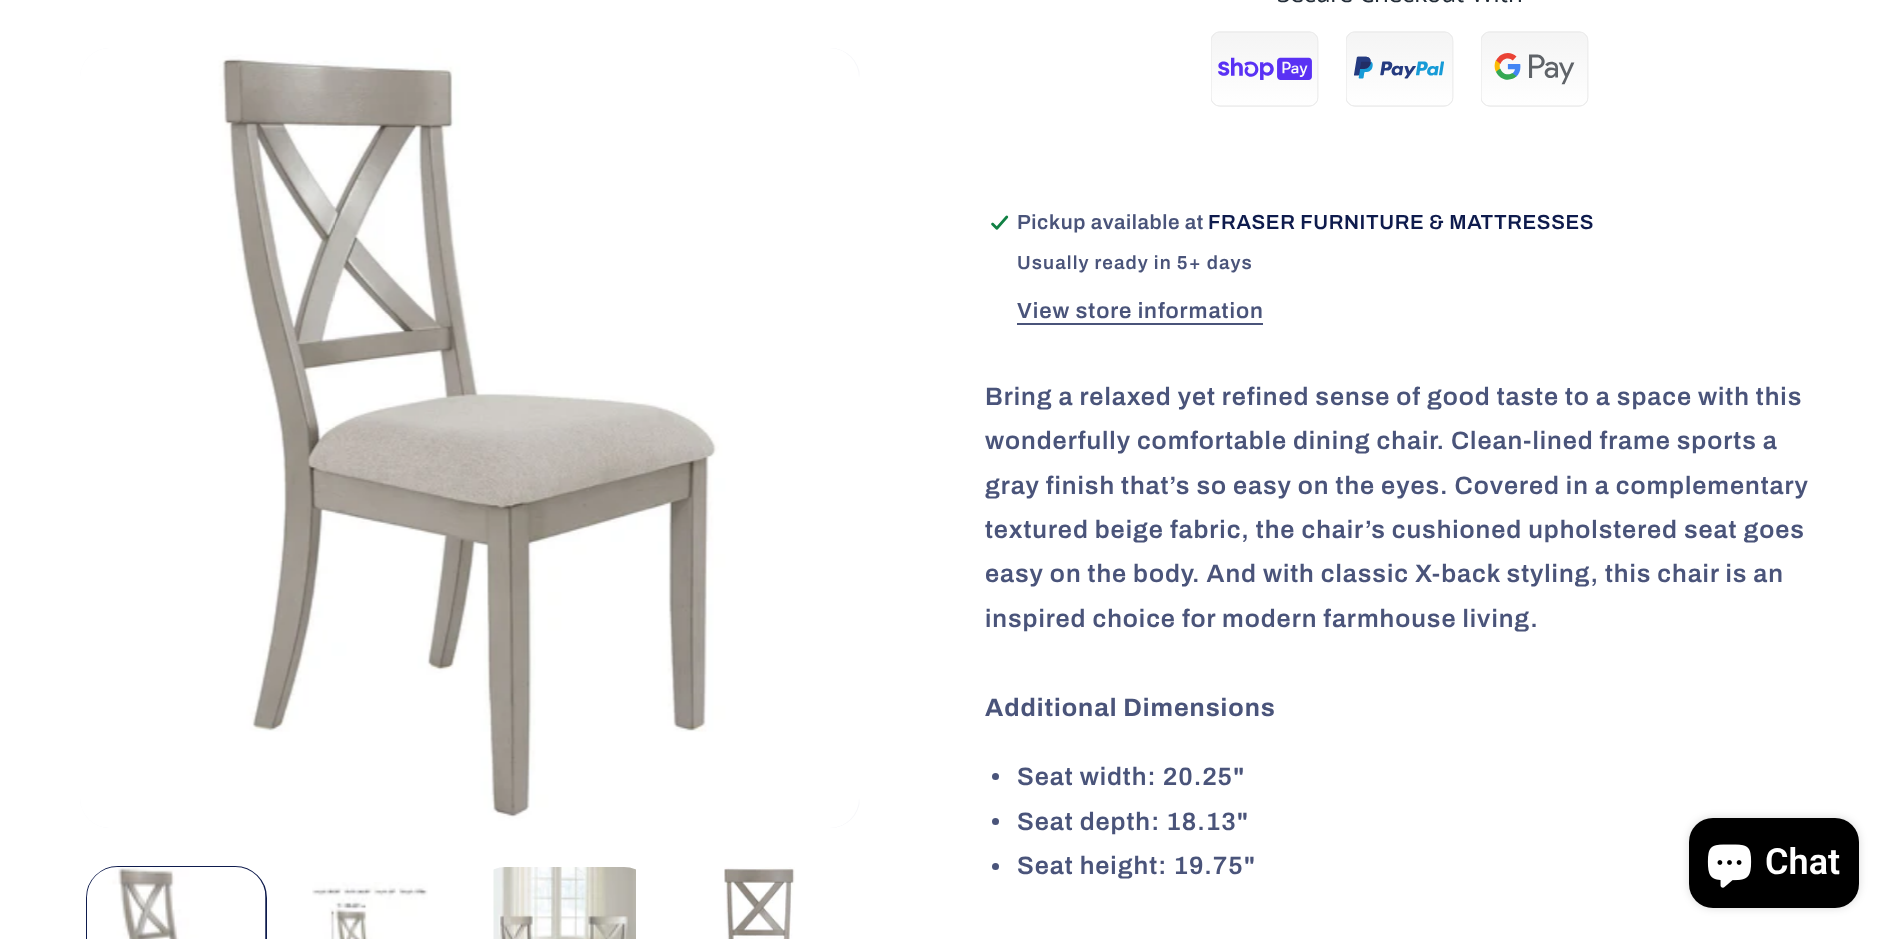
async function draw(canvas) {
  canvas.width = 1891
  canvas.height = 939
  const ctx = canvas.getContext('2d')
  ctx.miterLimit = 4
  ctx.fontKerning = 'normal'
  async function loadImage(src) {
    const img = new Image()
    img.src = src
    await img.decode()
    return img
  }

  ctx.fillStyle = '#fff'
  ctx.fillRect(0, 0, 1891, 939)
  ctx.fillStyle = '#eff0f5'
  ctx.beginPath()
  ctx.roundRect(80, 48, 780, 780, 30)
  ctx.fill()
  ctx.drawImage(await loadImage('image0.png'), 80, 48, 780, 780)
  ctx.beginPath()
  ctx.roundRect(87, 867, 179, 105, 31)
  ctx.strokeStyle = '#0e1b4d'
  ctx.lineWidth = 2
  ctx.stroke()
  ctx.drawImage(await loadImage('image1.png'), 87, 867, 179, 72)
  ctx.drawImage(await loadImage('image2.png'), 312, 882, 116, 57)
  ctx.drawImage(await loadImage('image3.png'), 493, 867, 143, 72)
  ctx.drawImage(await loadImage('image4.png'), 724, 867, 71, 72)
  ctx.drawImage(await loadImage('image5.png'), 1211, 0, 378, 107)
  ctx.drawImage(await loadImage('image6.png'), 991, 215, 18, 15)
  ctx.letterSpacing = '0.6px'
  ctx.font = '600 20.5px Archivo'
  ctx.fillStyle = '#4a547a'
  ctx.fillText('Pickup available at', 1017, 229)
  ctx.fillStyle = '#0e1b4d'
  ctx.fillText('FRASER FURNITURE & MATTRESSES', 1208, 229)
  ctx.letterSpacing = '1.1px'
  ctx.font = '600 18.9px Archivo'
  ctx.fillStyle = '#4a547a'
  ctx.fillText('Usually ready in 5+ days', 1017, 269)
  ctx.letterSpacing = '0.95px'
  ctx.font = '600 22px Archivo'
  ctx.fillText('View store information', 1017, 318)
  ctx.fillRect(1017, 323, 246, 2)
  ctx.font = '600 25.2px Archivo'
  ctx.fillText('Bring a relaxed yet refined sense of good taste to a space with this', 985, 405)
  ctx.fillText('wonderfully comfortable dining chair. Clean-lined frame sports a', 985, 449)
  ctx.fillText('gray finish that’s so easy on the eyes. Covered in a complementary', 985, 494)
  ctx.fillText('textured beige fabric, the chair’s cushioned upholstered seat goes', 985, 538)
  ctx.fillText('easy on the body. And with classic X-back styling, this chair is an', 985, 582)
  ctx.fillText('inspired choice for modern farmhouse living.', 985, 627)
  ctx.font = 'bold 25.2px Archivo'
  ctx.fillText('Additional Dimensions', 985, 716)
  ctx.beginPath()
  ctx.arc(995.5, 776.5, 3.5, 0, 2 * Math.PI)
  ctx.fill()
  ctx.font = '600 25.2px Archivo'
  ctx.fillText('Seat width: 20.25"', 1017, 785)
  ctx.beginPath()
  ctx.arc(995.5, 821.5, 3.5, 0, 2 * Math.PI)
  ctx.fill()
  ctx.fillText('Seat depth: 18.13"', 1017, 830)
  ctx.beginPath()
  ctx.arc(995.5, 866.5, 3.5, 0, 2 * Math.PI)
  ctx.fill()
  ctx.fillText('Seat height: 19.75"', 1017, 874)
  ctx.fillStyle = '#00000026'
  ctx.filter = 'blur(4px)'
  ctx.beginPath()
  ctx.roundRect(1689, 818, 170, 90, 24)
  ctx.fill()
  ctx.filter = 'none'
  ctx.fillStyle = '#000'
  ctx.beginPath()
  ctx.roundRect(1689, 818, 170, 90, 24)
  ctx.fill()
  ctx.drawImage(await loadImage('image7.png'), 1707, 844, 45, 44)
  ctx.letterSpacing = '0px'
  ctx.font = '600 36px Roboto'
  ctx.fillStyle = '#fff'
  ctx.fillText('Chat', 1765, 874)
}

draw(document.querySelector('canvas'))
